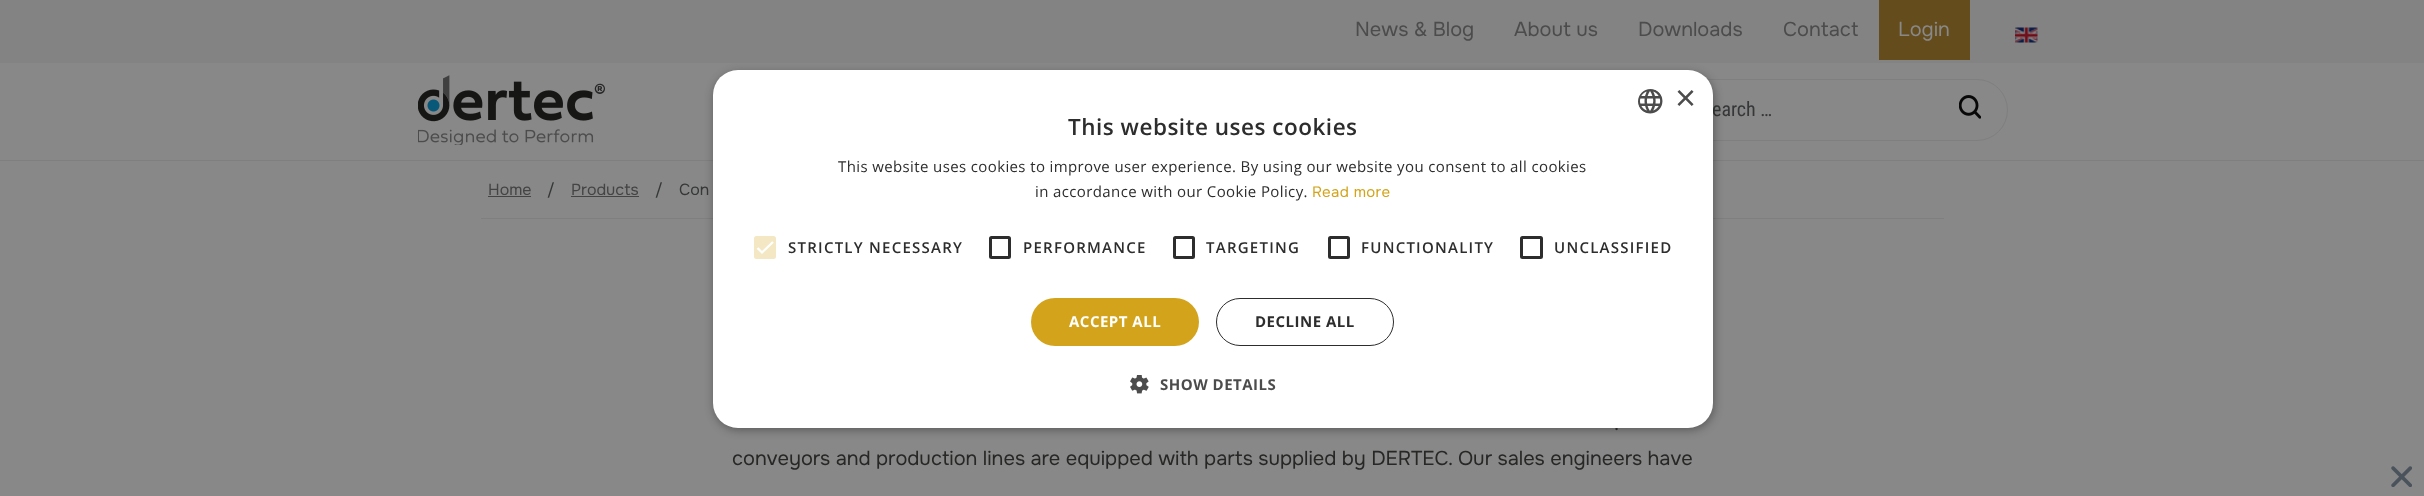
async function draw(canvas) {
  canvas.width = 2424
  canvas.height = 496
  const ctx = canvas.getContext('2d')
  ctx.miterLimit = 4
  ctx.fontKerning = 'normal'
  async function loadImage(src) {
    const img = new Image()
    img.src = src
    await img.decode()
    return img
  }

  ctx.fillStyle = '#888'
  ctx.fillRect(0, 0, 2424, 496)
  ctx.fillStyle = '#7f7f7f'
  ctx.fillRect(0, 160, 2424, 1)
  ctx.fillStyle = '#838383'
  ctx.fillRect(0, 0, 2424, 63)
  ctx.font = '20px Onest'
  ctx.fillStyle = '#4c4c4c'
  ctx.fillText('News & Blog', 1355, 36)
  ctx.fillText('About us', 1514, 36)
  ctx.fillText('Downloads', 1638, 36)
  ctx.fillText('Contact', 1783, 36)
  ctx.fillStyle = '#644c1d'
  ctx.fillRect(1879, 0, 91, 60)
  ctx.fillStyle = '#888'
  ctx.fillText('Login', 1898, 36)
  ctx.drawImage(await loadImage('image0.png'), 418, 75, 187, 70)
  ctx.beginPath()
  ctx.roundRect(1675.5, 79.5, 332, 61, 30.5)
  ctx.strokeStyle = '#7f7f7f'
  ctx.stroke()
  ctx.font = '20px Roboto Condensed'
  ctx.fillStyle = '#353738'
  ctx.fillText('earch …', 1712, 116)
  ctx.drawImage(await loadImage('image1.png'), 1959, 95, 22, 24)
  ctx.drawImage(await loadImage('image2.png'), 2015, 27, 23, 16)
  ctx.fillStyle = '#7f7f7f'
  ctx.fillRect(481, 218, 1463, 1)
  ctx.font = '16px Onest'
  ctx.fillStyle = '#444'
  ctx.fillText('Home', 488, 195)
  ctx.fillRect(488, 196, 43, 1)
  ctx.fillStyle = '#353738'
  ctx.fillText('/', 547, 195)
  ctx.fillStyle = '#444'
  ctx.fillText('Products', 571, 195)
  ctx.fillRect(571, 196, 68, 1)
  ctx.fillStyle = '#353738'
  ctx.fillText('/', 655, 195)
  ctx.fillText('Con', 679, 195)
  ctx.fillStyle = '#00000059'
  ctx.filter = 'blur(5px)'
  ctx.beginPath()
  ctx.roundRect(714, 73, 1000, 357, 25)
  ctx.fill()
  ctx.filter = 'none'
  ctx.font = '20px Onest'
  ctx.fillStyle = '#272726'
  ctx.fillText('.', 1614, 430)
  ctx.fillStyle = '#fff'
  ctx.beginPath()
  ctx.roundRect(713, 70, 1000, 358, 25)
  ctx.fill()
  ctx.drawImage(await loadImage('image3.png'), 1638, 89, 25, 25)
  ctx.font = '36px Liberation Sans'
  ctx.fillStyle = '#4c4c4c'
  ctx.fillText('×', 1675, 110)
  ctx.letterSpacing = '0.5px'
  ctx.font = '600 22.5px Open Sans'
  ctx.fillStyle = '#2d2d2d'
  ctx.fillText('This website uses cookies', 1068, 135)
  ctx.letterSpacing = '0.38px'
  ctx.font = '15px Open Sans'
  ctx.fillText('This website uses cookies to improve user experience. By using our website you consent to all cookies', 838, 172)
  ctx.fillText('in accordance with our Cookie Policy.', 1035, 197)
  ctx.font = '15px Onest'
  ctx.fillStyle = '#d3a41b'
  ctx.fillText('Read more', 1312, 197)
  ctx.fillStyle = '#f4e7c4'
  ctx.beginPath()
  ctx.roundRect(754, 236, 22, 23, 2.5)
  ctx.fill()
  ctx.beginPath()
  ctx.moveTo(757.5, 248)
  ctx.lineTo(762, 252.5)
  ctx.lineTo(773, 242)
  ctx.strokeStyle = '#fff'
  ctx.lineWidth = 2.3
  ctx.stroke()
  ctx.letterSpacing = '1.25px'
  ctx.font = '600 15px Open Sans'
  ctx.fillStyle = '#2d2d2d'
  ctx.fillText('STRICTLY NECESSARY', 788, 253)
  ctx.beginPath()
  ctx.roundRect(990.5, 237.5, 19, 20, 1)
  ctx.strokeStyle = '#2d2d2d'
  ctx.lineWidth = 3
  ctx.stroke()
  ctx.fillText('PERFORMANCE', 1023, 253)
  ctx.beginPath()
  ctx.roundRect(1174.5, 237.5, 19, 20, 1)
  ctx.stroke()
  ctx.fillText('TARGETING', 1206, 253)
  ctx.beginPath()
  ctx.roundRect(1329.5, 237.5, 19, 20, 1)
  ctx.stroke()
  ctx.fillText('FUNCTIONALITY', 1361, 253)
  ctx.beginPath()
  ctx.roundRect(1521.5, 237.5, 20, 20, 1)
  ctx.stroke()
  ctx.fillText('UNCLASSIFIED', 1554, 253)
  ctx.fillStyle = '#d3a41b'
  ctx.beginPath()
  ctx.roundRect(1031, 298, 168, 48, 24)
  ctx.fill()
  ctx.letterSpacing = '0.5px'
  ctx.font = 'bold 15px Open Sans'
  ctx.fillStyle = '#fff'
  ctx.fillText('ACCEPT ALL', 1069, 327)
  ctx.beginPath()
  ctx.roundRect(1216.5, 298.5, 177, 47, 23.5)
  ctx.lineWidth = 1
  ctx.stroke()
  ctx.fillStyle = '#2d2d2d'
  ctx.fillText('DECLINE ALL', 1255, 327)
  ctx.drawImage(await loadImage('image4.png'), 1130, 375, 19, 19)
  ctx.fillStyle = '#4c4c4c'
  ctx.fillText('SHOW DETAILS', 1160, 390)
  ctx.letterSpacing = '0px'
  ctx.font = '20px Onest'
  ctx.fillStyle = '#272726'
  ctx.fillText('conveyors and production lines are equipped with parts supplied by DERTEC. Our sales engineers have', 732, 465)
  ctx.drawImage(await loadImage('image5.png'), 2391, 466, 21, 21)
}

draw(document.querySelector('canvas'))
